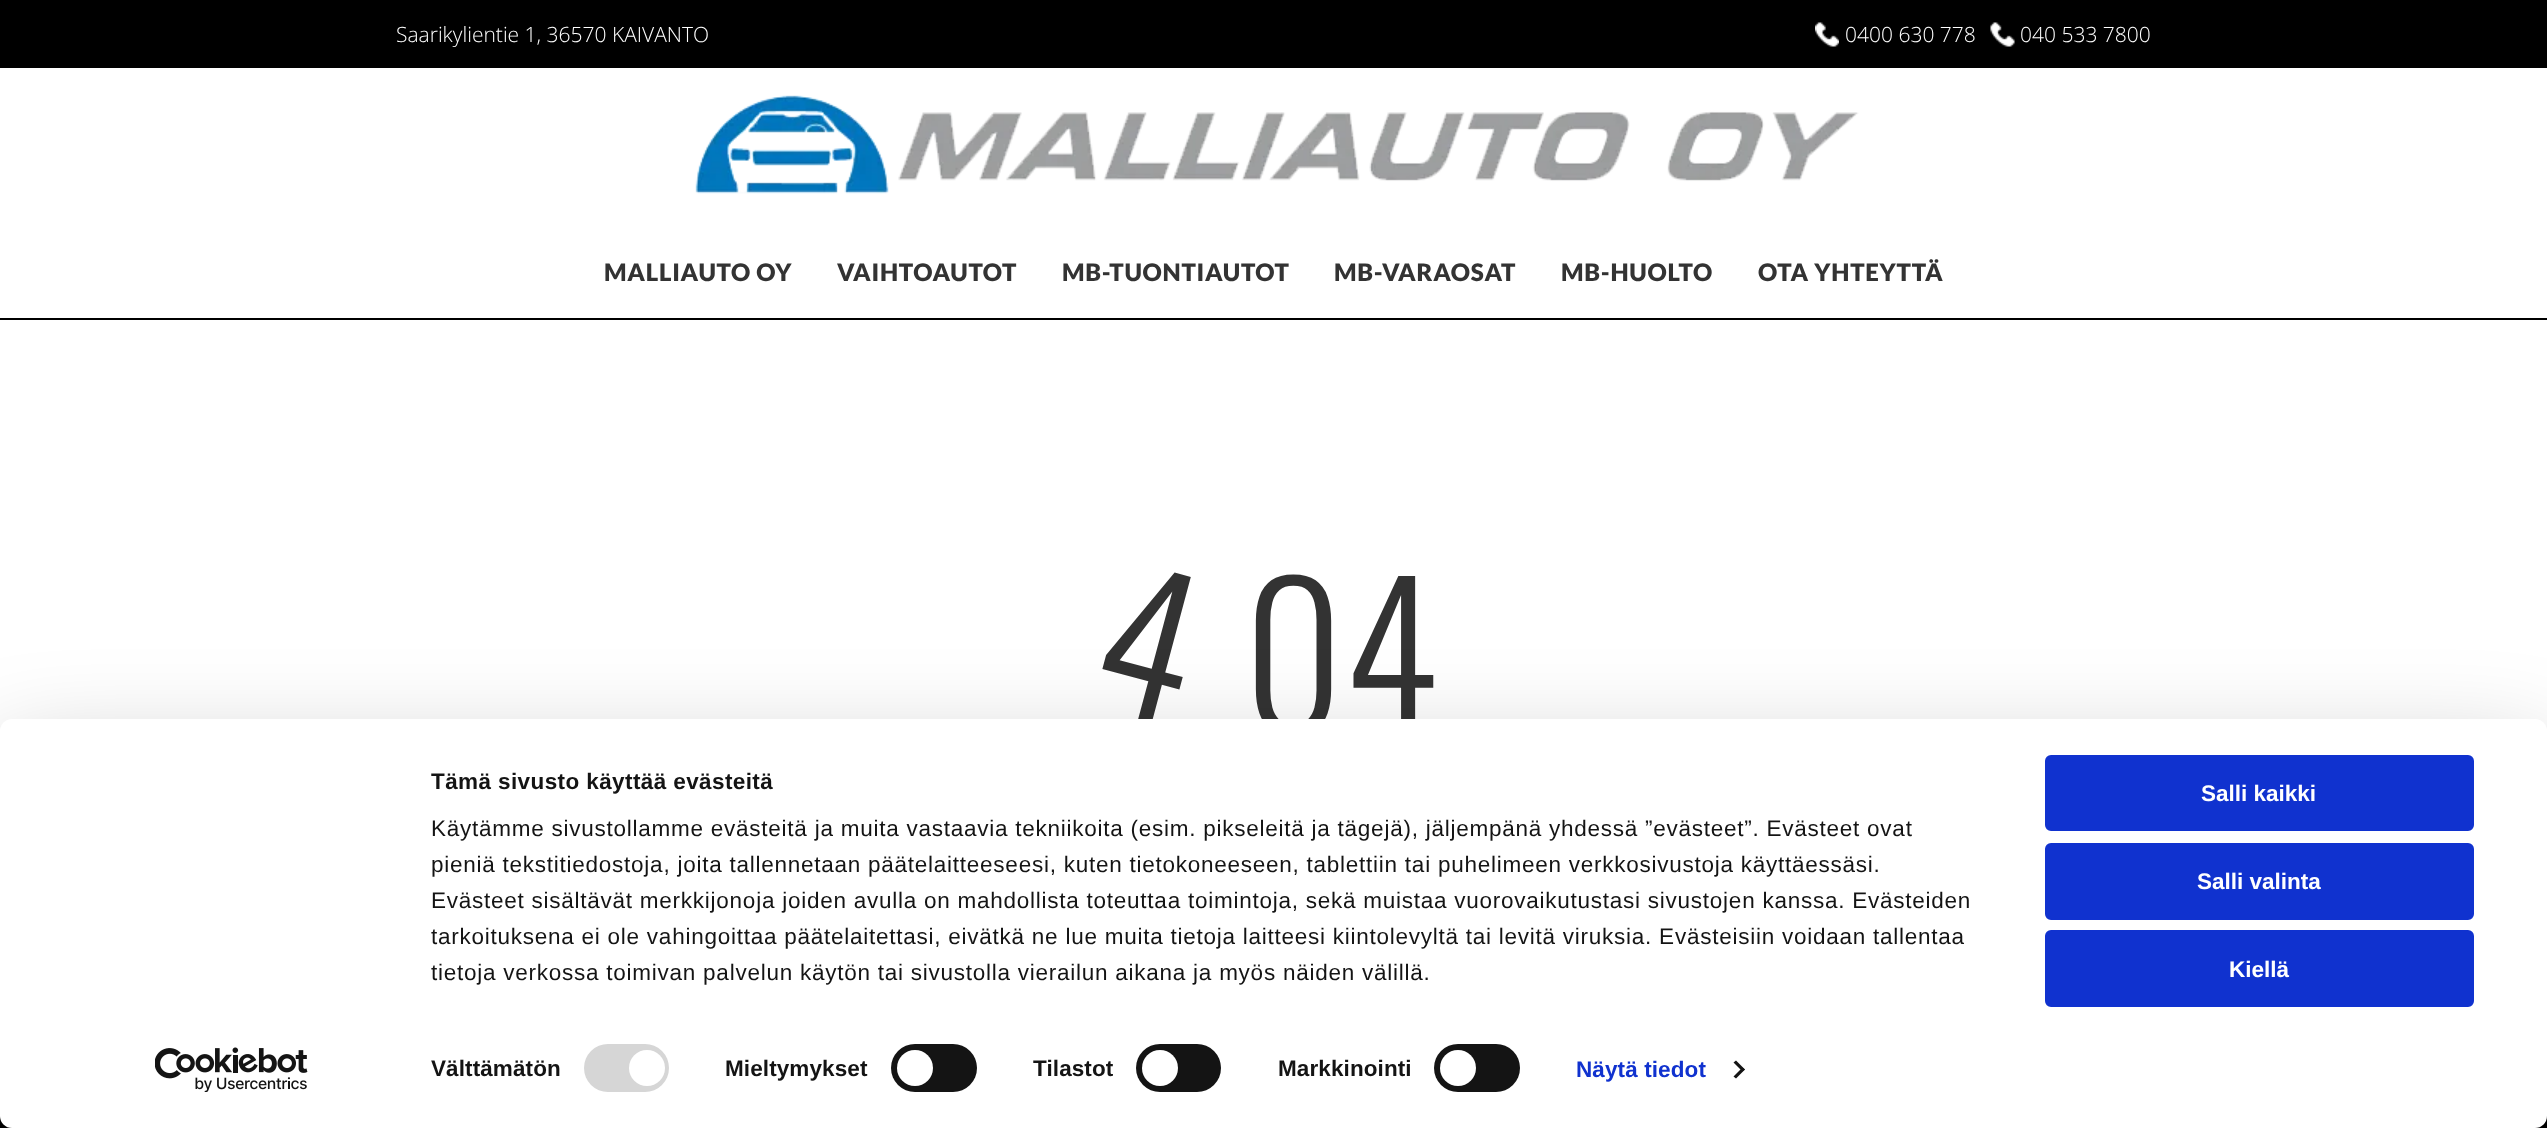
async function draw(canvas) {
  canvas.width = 2547
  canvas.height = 1128
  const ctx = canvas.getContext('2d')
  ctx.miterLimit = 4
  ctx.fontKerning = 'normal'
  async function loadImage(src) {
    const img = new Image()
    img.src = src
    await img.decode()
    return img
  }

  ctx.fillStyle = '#fff'
  ctx.fillRect(0, 0, 2547, 1128)
  ctx.fillStyle = '#000'
  ctx.fillRect(0, 0, 2547, 68)
  ctx.font = '300 21px Open Sans'
  ctx.fillStyle = '#fff'
  ctx.fillText('Saarikylientie 1, 36570 KAIVANTO', 396, 42)
  ctx.drawImage(await loadImage('image0.png'), 1815, 22, 24, 25)
  ctx.fillText('0400 630 778', 1845, 42)
  ctx.drawImage(await loadImage('image1.png'), 1990, 22, 25, 25)
  ctx.fillText('040 533 7800', 2020, 42)
  ctx.fillStyle = '#000'
  ctx.fillRect(0, 318, 2547, 2)
  ctx.drawImage(await loadImage('image2.png'), 695, 95, 1164, 99)
  ctx.letterSpacing = '0.75px'
  ctx.font = '900 24px Lato'
  ctx.fillStyle = '#333'
  ctx.fillText('MALLIAUTO OY', 604, 281)
  ctx.fillText('VAIHTOAUTOT', 837, 281)
  ctx.fillText('MB-TUONTIAUTOT', 1062, 281)
  ctx.fillText('MB-VARAOSAT', 1334, 281)
  ctx.fillText('MB-HUOLTO', 1561, 281)
  ctx.fillText('OTA YHTEYTTÄ', 1758, 281)
  ctx.letterSpacing = '0px'
  ctx.font = '300 195px Oswald'
  ctx.save()
  ctx.translate(1081, 711)
  ctx.rotate(15 * Math.PI / 180)
  ctx.fillText('4', 0, 0)
  ctx.restore()
  ctx.fillText('04', 1243, 734)
  ctx.fillStyle = '#000'
  ctx.fillRect(0, 1116, 2547, 12)
  ctx.fillStyle = '#0000004d'
  ctx.filter = 'blur(52.5px)'
  ctx.beginPath()
  ctx.roundRect(0, 764, 2547, 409, 12)
  ctx.fill()
  ctx.filter = 'none'
  ctx.fillStyle = '#fff'
  ctx.beginPath()
  ctx.roundRect(0, 719, 2547, 409, 12)
  ctx.fill()
  ctx.letterSpacing = '0.4px'
  ctx.font = 'bold 22.5px Liberation Sans'
  ctx.fillStyle = '#141414'
  ctx.fillText('Tämä sivusto käyttää evästeitä', 431, 789)
  ctx.letterSpacing = '0.75px'
  ctx.font = '22.5px Liberation Sans'
  ctx.fillText('Käytämme sivustollamme evästeitä ja muita vastaavia tekniikoita (esim. pikseleitä ja tägejä), jäljempänä yhdessä ”evästeet”. Evästeet ovat', 431, 836)
  ctx.fillText('pieniä tekstitiedostoja, joita tallennetaan päätelaitteeseesi, kuten tietokoneeseen, tablettiin tai puhelimeen verkkosivustoja käyttäessäsi.', 431, 872)
  ctx.fillText('Evästeet sisältävät merkkijonoja joiden avulla on mahdollista toteuttaa toimintoja, sekä muistaa vuorovaikutustasi sivustojen kanssa. Evästeiden', 431, 908)
  ctx.fillText('tarkoituksena ei ole vahingoittaa päätelaitettasi, eivätkä ne lue muita tietoja laitteesi kiintolevyltä tai levitä viruksia. Evästeisiin voidaan tallentaa', 431, 944)
  ctx.fillText('tietoja verkossa toimivan palvelun käytön tai sivustolla vierailun aikana ja myös näiden välillä.', 431, 980)
  ctx.letterSpacing = '0.1px'
  ctx.font = 'bold 22.5px Liberation Sans'
  ctx.fillText('Välttämätön', 431, 1076)
  ctx.fillStyle = '#d6d6d6'
  ctx.beginPath()
  ctx.roundRect(584, 1044, 85, 48, 24)
  ctx.fill()
  ctx.fillStyle = '#fff'
  ctx.beginPath()
  ctx.arc(647, 1068, 18, 0, 2 * Math.PI)
  ctx.fill()
  ctx.fillStyle = '#141414'
  ctx.fillText('Mieltymykset', 725, 1076)
  ctx.beginPath()
  ctx.roundRect(891, 1044, 86, 48, 24)
  ctx.fill()
  ctx.fillStyle = '#fff'
  ctx.beginPath()
  ctx.arc(915, 1068, 18, 0, 2 * Math.PI)
  ctx.fill()
  ctx.fillStyle = '#141414'
  ctx.fillText('Tilastot', 1033, 1076)
  ctx.beginPath()
  ctx.roundRect(1136, 1044, 85, 48, 24)
  ctx.fill()
  ctx.fillStyle = '#fff'
  ctx.beginPath()
  ctx.arc(1160, 1068, 18, 0, 2 * Math.PI)
  ctx.fill()
  ctx.fillStyle = '#141414'
  ctx.fillText('Markkinointi', 1278, 1076)
  ctx.beginPath()
  ctx.roundRect(1434, 1044, 86, 48, 24)
  ctx.fill()
  ctx.fillStyle = '#fff'
  ctx.beginPath()
  ctx.arc(1458, 1068, 18, 0, 2 * Math.PI)
  ctx.fill()
  ctx.fillStyle = '#1032cf'
  ctx.fillText('Näytä tiedot', 1576, 1077)
  ctx.fillStyle = '#141414'
  ctx.beginPath()
  ctx.moveTo(1736, 1060.5)
  ctx.lineTo(1745, 1069.5)
  ctx.lineTo(1742.5, 1071.5)
  ctx.lineTo(1733.5, 1062.5)
  ctx.closePath()
  ctx.fill()
  ctx.beginPath()
  ctx.moveTo(1742.5, 1067.5)
  ctx.lineTo(1745, 1069.5)
  ctx.lineTo(1736, 1078.5)
  ctx.lineTo(1733.5, 1076.5)
  ctx.closePath()
  ctx.fill()
  ctx.fillStyle = '#1032cf'
  ctx.beginPath()
  ctx.roundRect(2046.5, 756.5, 426, 73, 4.5)
  ctx.fill()
  ctx.strokeStyle = '#1032cf'
  ctx.lineWidth = 3
  ctx.stroke()
  ctx.letterSpacing = '0px'
  ctx.fillStyle = '#fff'
  ctx.fillText('Salli kaikki', 2201, 801)
  ctx.fillStyle = '#1032cf'
  ctx.beginPath()
  ctx.roundRect(2046.5, 844.5, 426, 74, 4.5)
  ctx.fill()
  ctx.stroke()
  ctx.fillStyle = '#fff'
  ctx.fillText('Salli valinta', 2197, 889)
  ctx.fillStyle = '#1032cf'
  ctx.beginPath()
  ctx.roundRect(2046.5, 931.5, 426, 74, 4.5)
  ctx.fill()
  ctx.stroke()
  ctx.fillStyle = '#fff'
  ctx.fillText('Kiellä', 2229, 977)
  ctx.drawImage(await loadImage('image3.png'), 155, 1047, 153, 45)
}

draw(document.querySelector('canvas'))
